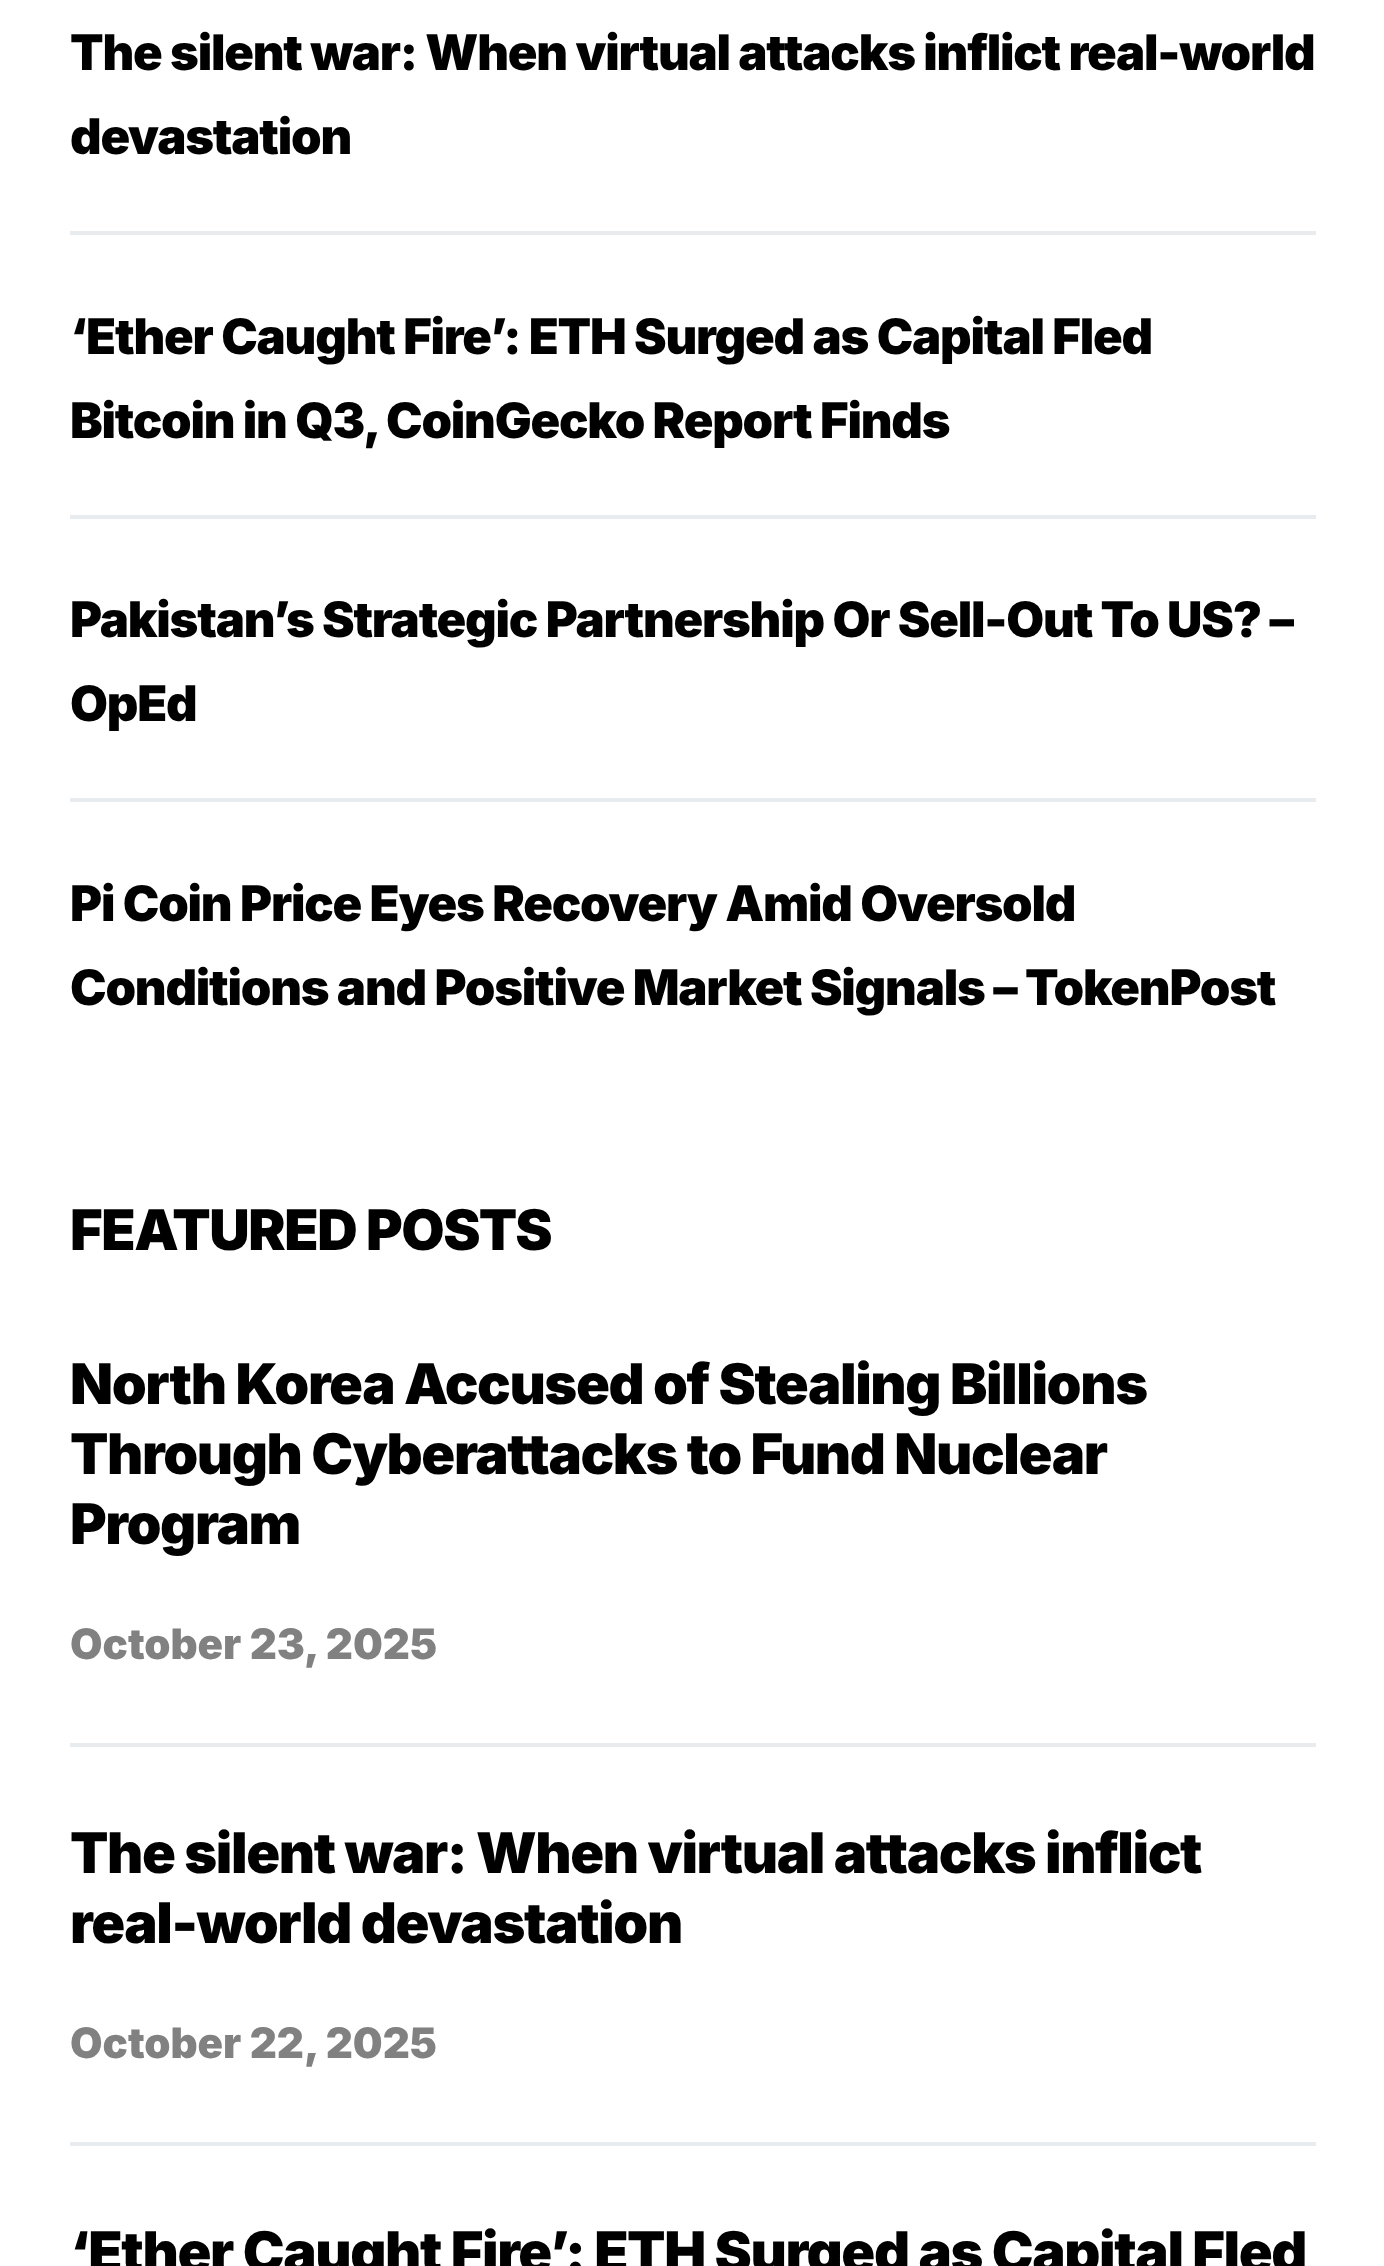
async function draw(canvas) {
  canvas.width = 1384
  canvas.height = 2266
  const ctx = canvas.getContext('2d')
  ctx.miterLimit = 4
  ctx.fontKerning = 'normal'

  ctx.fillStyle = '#fff'
  ctx.fillRect(0, 0, 1384, 2266)
  ctx.fillStyle = '#e9ecef'
  ctx.fillRect(70, 231, 1246, 4)
  ctx.letterSpacing = '-1.22px'
  ctx.font = '900 49px Inter'
  ctx.fillStyle = '#000'
  ctx.fillText('The silent war: When virtual attacks inflict real-world', 70, 70)
  ctx.fillText('devastation', 70, 154)
  ctx.fillStyle = '#e9ecef'
  ctx.fillRect(70, 515, 1246, 4)
  ctx.fillStyle = '#000'
  ctx.fillText('‘Ether Caught Fire’: ETH Surged as Capital Fled', 70, 354)
  ctx.fillText('Bitcoin in Q3, CoinGecko Report Finds', 70, 438)
  ctx.fillStyle = '#e9ecef'
  ctx.fillRect(70, 798, 1246, 4)
  ctx.fillStyle = '#000'
  ctx.fillText('Pakistan’s Strategic Partnership Or Sell-Out To US? –', 70, 637)
  ctx.fillText('OpEd', 70, 721)
  ctx.fillText('Pi Coin Price Eyes Recovery Amid Oversold', 70, 921)
  ctx.fillText('Conditions and Positive Market Signals – TokenPost', 70, 1005)
  ctx.letterSpacing = '-1.4px'
  ctx.font = '900 56px Inter'
  ctx.fillText('FEATURED POSTS', 70, 1250)
  ctx.fillText('North Korea Accused of Stealing Billions', 70, 1404)
  ctx.fillText('Through Cyberattacks to Fund Nuclear', 70, 1474)
  ctx.fillText('Program', 70, 1544)
  ctx.letterSpacing = '0px'
  ctx.font = '900 42px Inter'
  ctx.fillStyle = '#818181'
  ctx.fillText('October 23, 2025', 70, 1659)
  ctx.fillStyle = '#e9ecef'
  ctx.fillRect(70, 1743, 1246, 4)
  ctx.letterSpacing = '-1.4px'
  ctx.font = '900 56px Inter'
  ctx.fillStyle = '#000'
  ctx.fillText('The silent war: When virtual attacks inflict', 70, 1873)
  ctx.fillText('real-world devastation', 70, 1943)
  ctx.letterSpacing = '0px'
  ctx.font = '900 42px Inter'
  ctx.fillStyle = '#818181'
  ctx.fillText('October 22, 2025', 70, 2058)
  ctx.fillStyle = '#e9ecef'
  ctx.fillRect(70, 2142, 1246, 4)
  ctx.letterSpacing = '-1.4px'
  ctx.font = '900 56px Inter'
  ctx.fillStyle = '#000'
  ctx.fillText('‘Ether Caught Fire’: ETH Surged as Capital Fled', 70, 2272)
}

draw(document.querySelector('canvas'))
